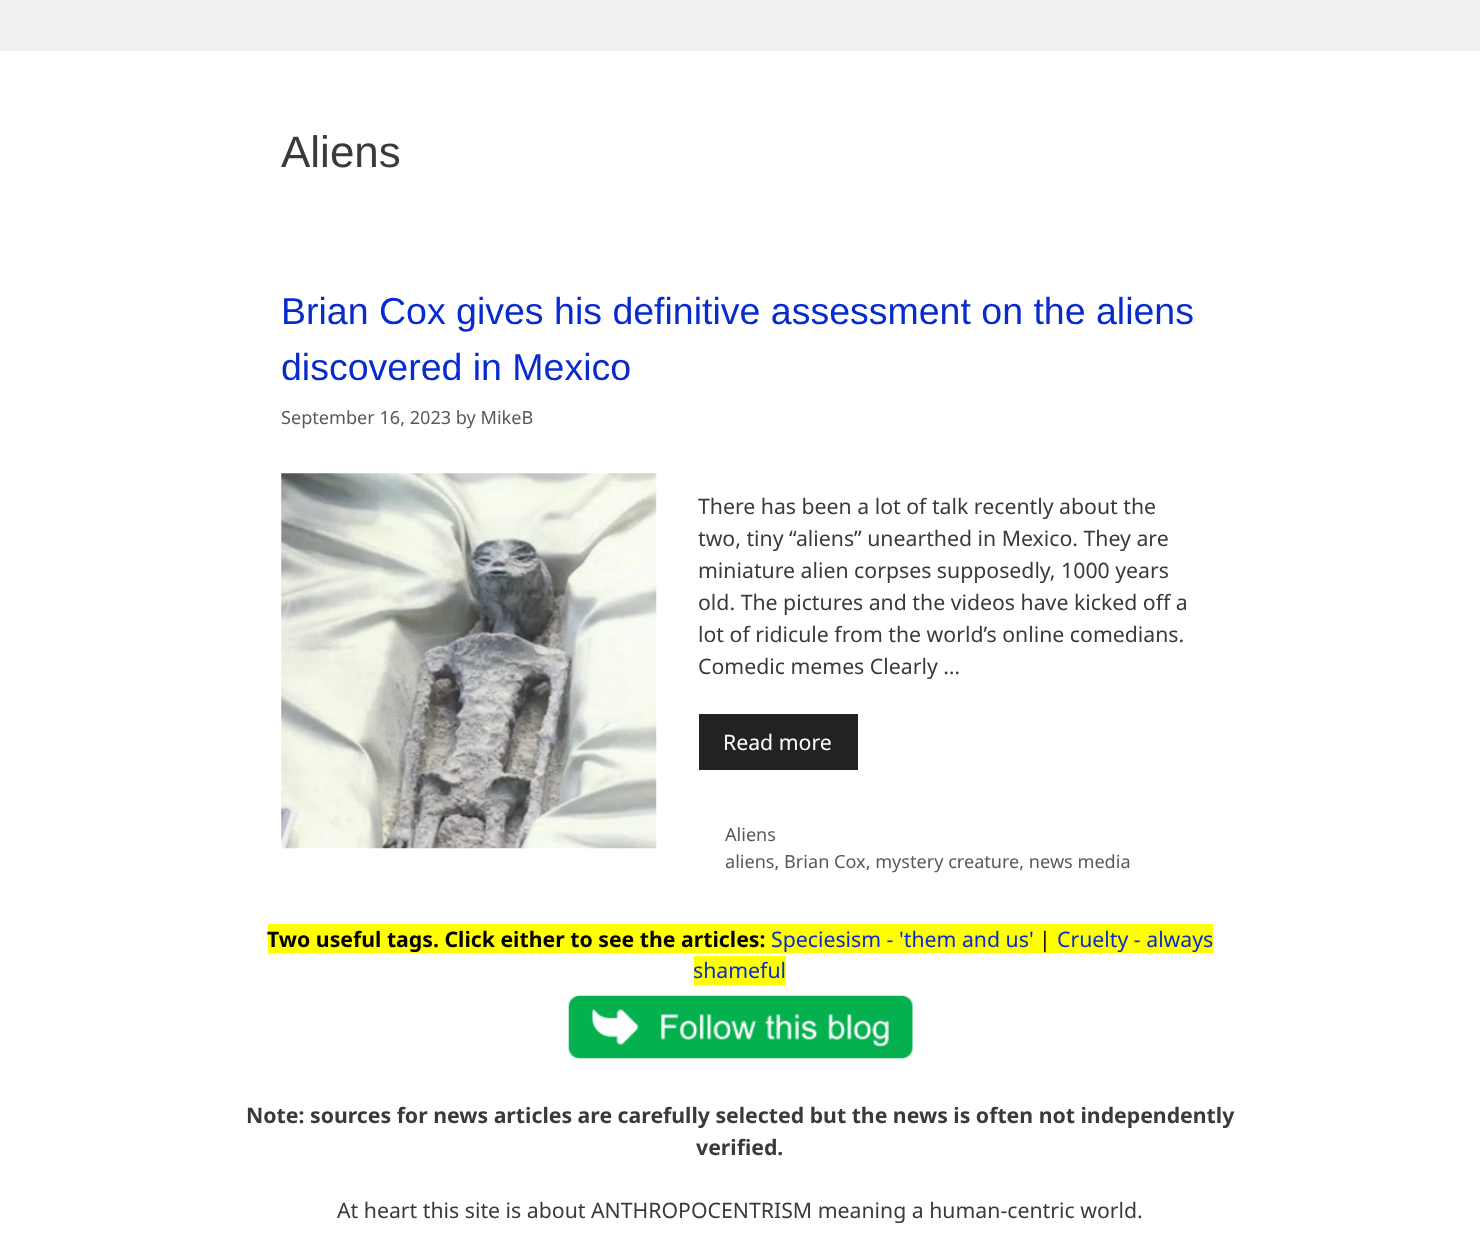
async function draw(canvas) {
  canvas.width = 1480
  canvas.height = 1244
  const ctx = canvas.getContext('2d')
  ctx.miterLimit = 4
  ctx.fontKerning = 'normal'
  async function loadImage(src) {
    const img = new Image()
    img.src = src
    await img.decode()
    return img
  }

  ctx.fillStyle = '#fff'
  ctx.fillRect(0, 0, 1480, 1244)
  ctx.fillStyle = '#f0f0f0'
  ctx.fillRect(0, 0, 1480, 51)
  ctx.font = '44px Liberation Sans'
  ctx.fillStyle = '#3a3a3a'
  ctx.fillText('Aliens', 281, 167)
  ctx.font = '37.5px Liberation Sans'
  ctx.fillStyle = '#072bcd'
  ctx.fillText('Brian Cox gives his definitive assessment on the aliens', 281, 324)
  ctx.fillText('discovered in Mexico', 281, 380)
  ctx.font = '18.1px Noto Sans'
  ctx.fillStyle = '#595959'
  ctx.fillText('September 16, 2023 by MikeB', 281, 424)
  ctx.drawImage(await loadImage('image0.png'), 281, 473, 376, 376)
  ctx.font = '21.25px Noto Sans'
  ctx.fillStyle = '#3a3a3a'
  ctx.fillText('There has been a lot of talk recently about the', 698, 514)
  ctx.fillText('two, tiny “aliens” unearthed in Mexico. They are', 698, 546)
  ctx.fillText('miniature alien corpses supposedly, 1000 years', 698, 578)
  ctx.fillText('old. The pictures and the videos have kicked off a', 698, 610)
  ctx.fillText('lot of ridicule from the world’s online comedians.', 698, 642)
  ctx.fillText('Comedic memes Clearly …', 698, 674)
  ctx.fillStyle = '#222'
  ctx.fillRect(699, 714, 159, 56)
  ctx.fillStyle = '#fff'
  ctx.fillText('Read more', 723, 750)
  ctx.font = '18.1px Noto Sans'
  ctx.fillStyle = '#595959'
  ctx.fillText('Aliens', 725, 841)
  ctx.fillText('aliens, Brian Cox, mystery creature, news media', 725, 868)
  ctx.fillStyle = '#ff0'
  ctx.fillRect(268, 924, 945, 29)
  ctx.font = 'bold 21.25px Noto Sans'
  ctx.fillStyle = '#000'
  ctx.fillText('Two useful tags. Click either to see the articles:', 267, 947)
  ctx.font = '21.25px Noto Sans'
  ctx.fillStyle = '#072bcd'
  ctx.fillText('Speciesism - \'them and us\'', 771, 947)
  ctx.fillStyle = '#000'
  ctx.fillText('|', 1039, 947)
  ctx.fillStyle = '#072bcd'
  ctx.fillText('Cruelty - always', 1057, 947)
  ctx.fillStyle = '#ff0'
  ctx.fillRect(694, 956, 92, 29)
  ctx.fillStyle = '#072bcd'
  ctx.fillText('shameful', 693, 978)
  ctx.drawImage(await loadImage('image1.png'), 568, 995, 345, 64)
  ctx.font = 'bold 21.25px Noto Sans'
  ctx.fillStyle = '#3a3a3a'
  ctx.fillText('Note: sources for news articles are carefully selected but the news is often not independently', 246, 1123)
  ctx.fillText('verified.', 696, 1155)
  ctx.font = '21.25px Noto Sans'
  ctx.fillText('At heart this site is about ANTHROPOCENTRISM meaning a human-centric world.', 337, 1218)
}

draw(document.querySelector('canvas'))
